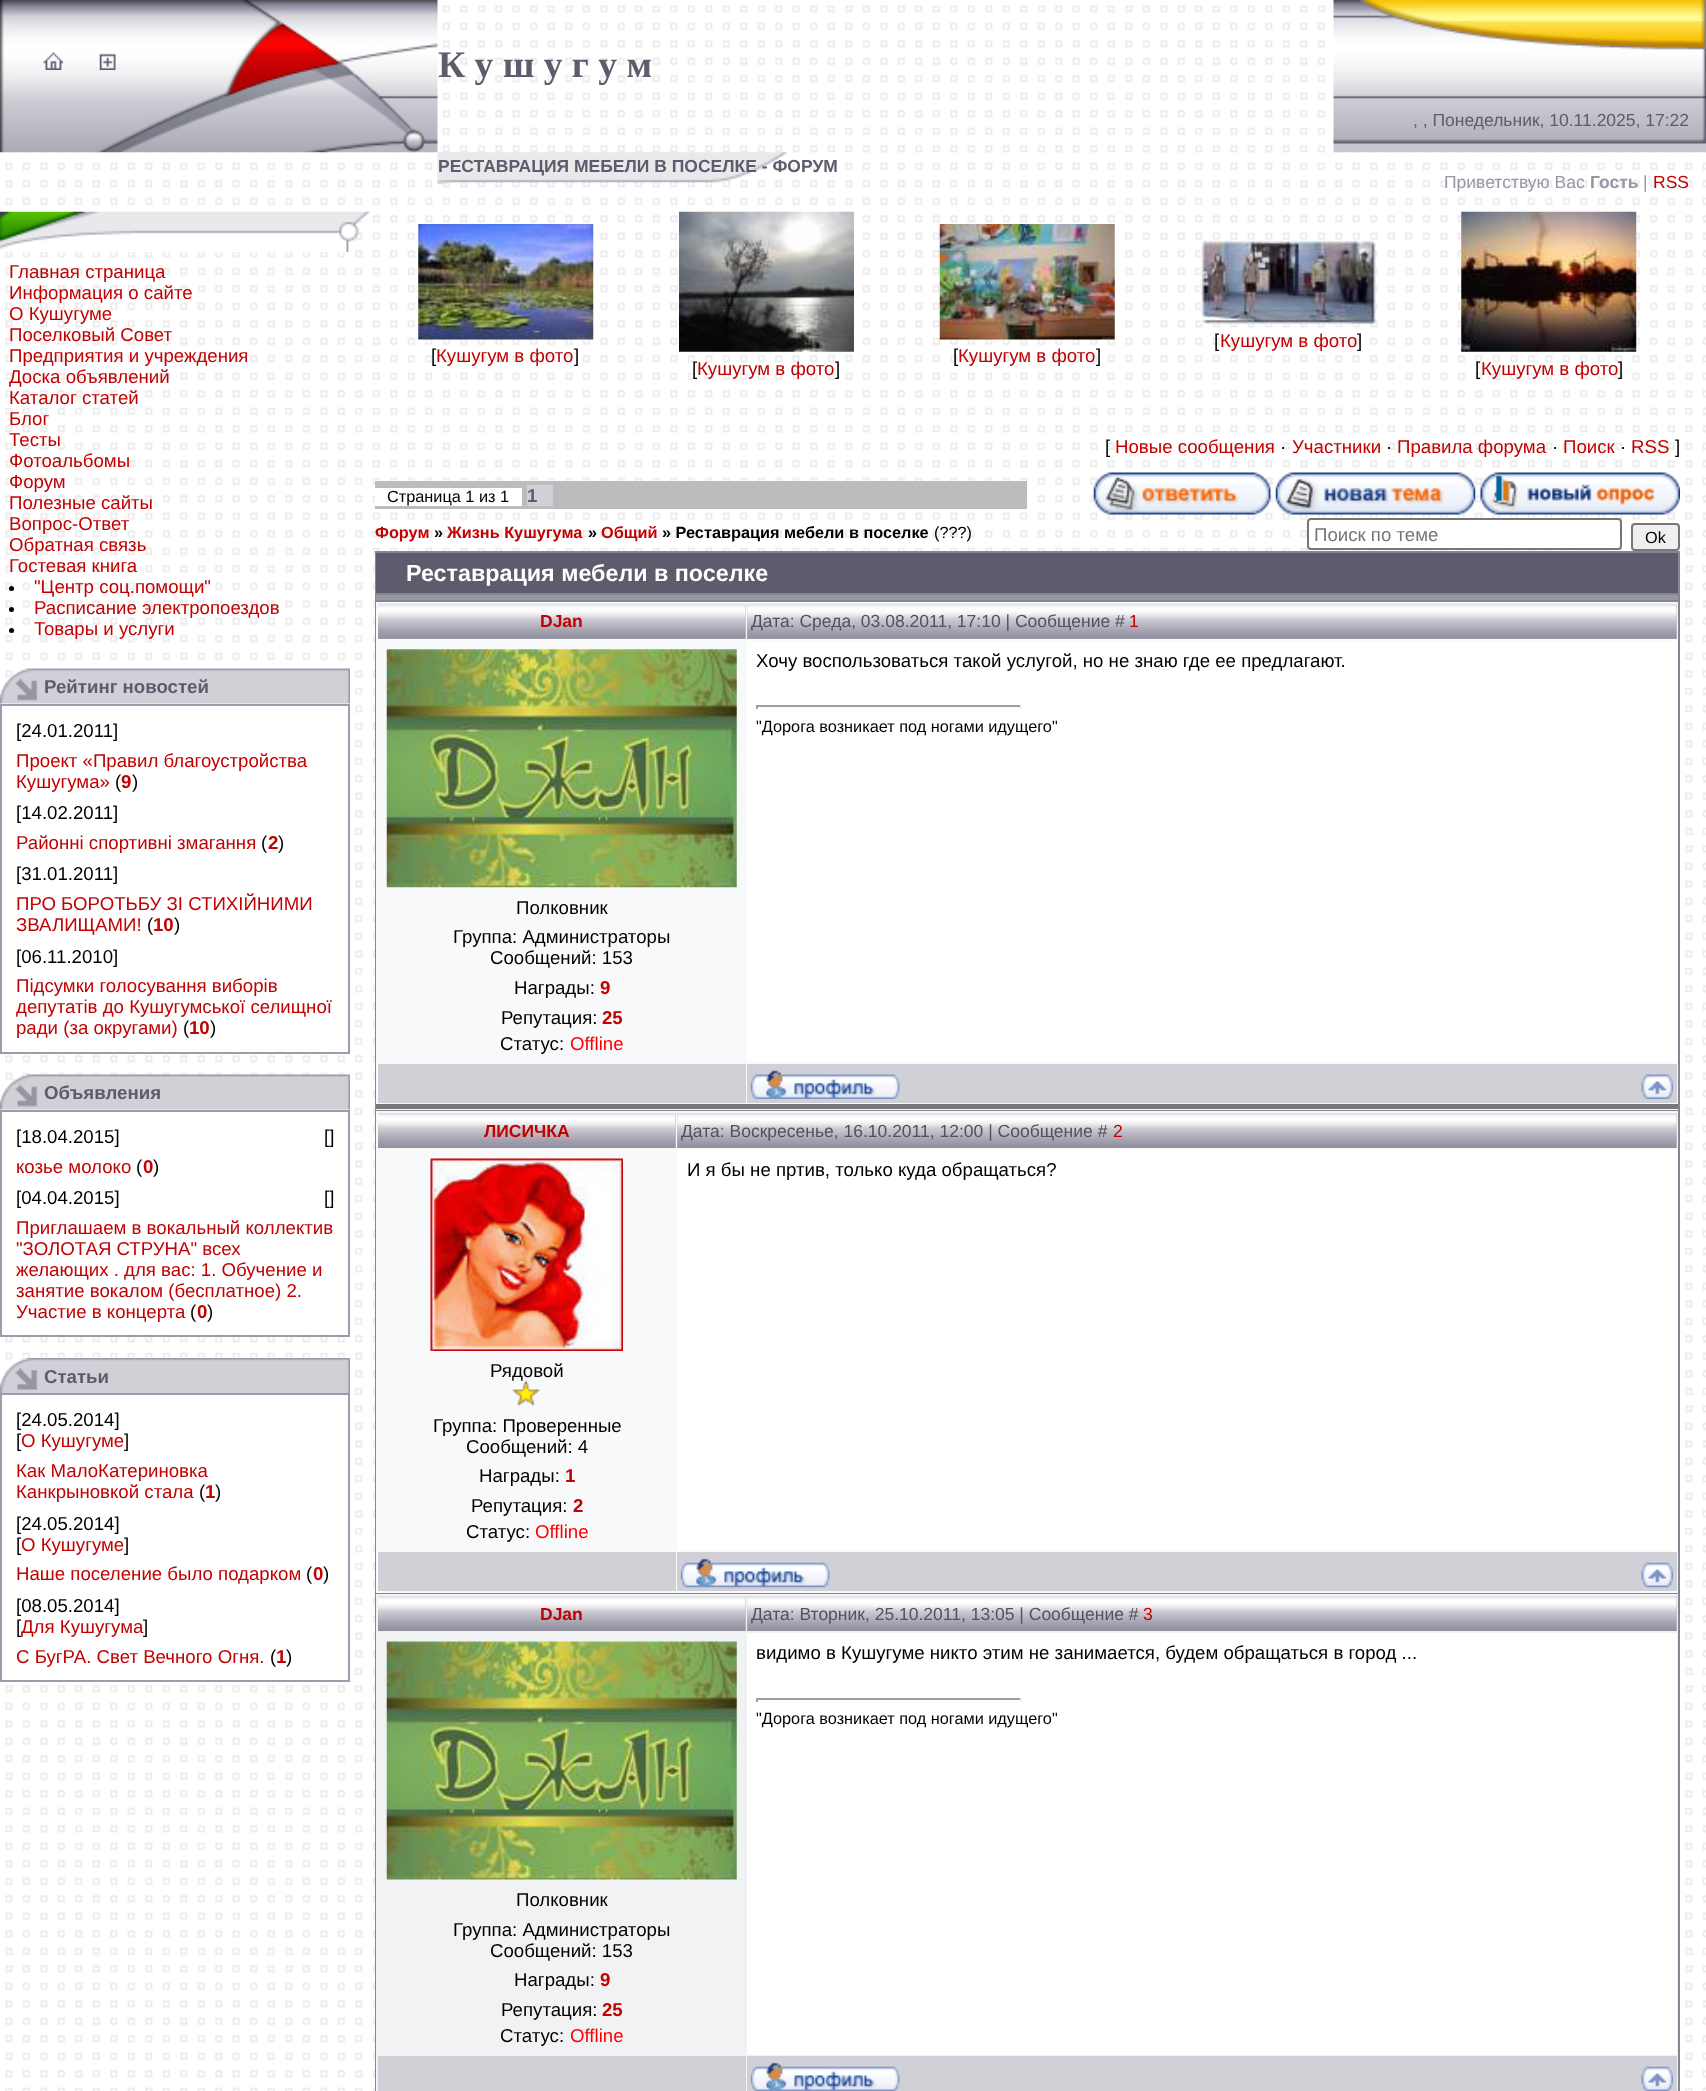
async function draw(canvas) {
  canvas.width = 1706
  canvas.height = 2091
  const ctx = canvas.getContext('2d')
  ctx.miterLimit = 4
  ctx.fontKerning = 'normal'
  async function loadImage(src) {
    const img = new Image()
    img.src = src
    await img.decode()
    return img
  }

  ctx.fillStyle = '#fff'
  ctx.fillRect(0, 0, 1706, 2091)
  ctx.drawImage(await loadImage('image0.png'), 5, 5, 1701, 2086)
  ctx.drawImage(await loadImage('image1.png'), 0, 0, 438, 153)
  ctx.drawImage(await loadImage('image2.png'), 43, 52, 20, 18)
  ctx.drawImage(await loadImage('image3.png'), 99, 53, 17, 17)
  ctx.font = 'bold 37.5px Liberation Serif'
  ctx.fillStyle = '#5d5b6c'
  ctx.fillText('К у ш у г у м', 438, 77)
  ctx.drawImage(await loadImage('image4.png'), 1333, 0, 373, 153)
  ctx.font = '17.5px Liberation Sans'
  ctx.fillText(', , Понедельник, 10.11.2025, 17:22', 1413, 126)
  ctx.drawImage(await loadImage('image5.png'), 437, 152, 351, 33)
  ctx.font = 'bold 17.5px Liberation Sans'
  ctx.fillText('РЕСТАВРАЦИЯ МЕБЕЛИ В ПОСЕЛКЕ - ФОРУМ', 438, 172)
  ctx.font = '17.5px Liberation Sans'
  ctx.fillStyle = '#9895a5'
  ctx.fillText('Приветствую Вас', 1444, 188)
  ctx.font = 'bold 17.5px Liberation Sans'
  ctx.fillText('Гость', 1590, 188)
  ctx.font = '17.5px Liberation Sans'
  ctx.fillText('|', 1643, 188)
  ctx.fillStyle = '#c00202'
  ctx.fillText('RSS', 1653, 188)
  ctx.drawImage(await loadImage('image6.png'), 0, 211, 370, 41)
  ctx.font = '18.65px Liberation Sans'
  ctx.fillText('Главная страница', 9, 278)
  ctx.fillText('Информация о сайте', 9, 299)
  ctx.fillText('О Кушугуме', 9, 320)
  ctx.fillText('Поселковый Совет', 9, 341)
  ctx.fillText('Предприятия и учреждения', 9, 362)
  ctx.fillText('Доска объявлений', 9, 383)
  ctx.fillText('Каталог статей', 9, 404)
  ctx.fillText('Блог', 9, 425)
  ctx.fillText('Тесты', 9, 446)
  ctx.fillText('Фотоальбомы', 9, 467)
  ctx.fillText('Форум', 9, 488)
  ctx.fillText('Полезные сайты', 9, 509)
  ctx.fillText('Вопрос-Ответ', 9, 530)
  ctx.fillText('Обратная связь', 9, 551)
  ctx.fillText('Гостевая книга', 9, 572)
  ctx.fillStyle = '#000'
  ctx.beginPath()
  ctx.arc(11.5, 588.5, 2.5, 0, 2 * Math.PI)
  ctx.fill()
  ctx.fillStyle = '#c00202'
  ctx.fillText('"Центр соц.помощи"', 34, 593)
  ctx.fillStyle = '#000'
  ctx.beginPath()
  ctx.arc(11.5, 609.5, 2.5, 0, 2 * Math.PI)
  ctx.fill()
  ctx.fillStyle = '#c00202'
  ctx.fillText('Расписание электропоездов', 34, 614)
  ctx.fillStyle = '#000'
  ctx.beginPath()
  ctx.arc(11.5, 630.5, 2.5, 0, 2 * Math.PI)
  ctx.fill()
  ctx.fillStyle = '#c00202'
  ctx.fillText('Товары и услуги', 34, 635)
  ctx.drawImage(await loadImage('image7.png'), 0, 668, 350, 36)
  ctx.font = 'bold 18.65px Liberation Sans'
  ctx.fillStyle = '#5d5b6c'
  ctx.fillText('Рейтинг новостей', 44, 693)
  ctx.fillStyle = '#fff'
  ctx.fillRect(5, 706, 341, 340)
  ctx.strokeStyle = '#9d9cad'
  ctx.lineWidth = 2
  ctx.strokeRect(1, 705, 348, 348)
  ctx.font = '18.65px Liberation Sans'
  ctx.fillStyle = '#000'
  ctx.fillText('[24.01.2011]', 16, 737)
  ctx.fillStyle = '#c00202'
  ctx.fillText('Проект «Правил благоустройства', 16, 767)
  ctx.fillText('Кушугума»', 16, 788)
  ctx.fillStyle = '#000'
  ctx.fillText('(', 115, 788)
  ctx.font = 'bold 18.65px Liberation Sans'
  ctx.fillStyle = '#c00202'
  ctx.fillText('9', 121, 788)
  ctx.font = '18.65px Liberation Sans'
  ctx.fillStyle = '#000'
  ctx.fillText(')', 132, 788)
  ctx.fillText('[14.02.2011]', 16, 819)
  ctx.fillStyle = '#c00202'
  ctx.fillText('Районні спортивні змагання', 16, 849)
  ctx.fillStyle = '#000'
  ctx.fillText('(', 261, 849)
  ctx.font = 'bold 18.65px Liberation Sans'
  ctx.fillStyle = '#c00202'
  ctx.fillText('2', 268, 849)
  ctx.font = '18.65px Liberation Sans'
  ctx.fillStyle = '#000'
  ctx.fillText(')', 278, 849)
  ctx.fillText('[31.01.2011]', 16, 880)
  ctx.fillStyle = '#c00202'
  ctx.fillText('ПРО БОРОТЬБУ ЗІ СТИХІЙНИМИ', 16, 910)
  ctx.fillText('ЗВАЛИЩАМИ!', 16, 931)
  ctx.fillStyle = '#000'
  ctx.fillText('(', 147, 931)
  ctx.font = 'bold 18.65px Liberation Sans'
  ctx.fillStyle = '#c00202'
  ctx.fillText('10', 153, 931)
  ctx.font = '18.65px Liberation Sans'
  ctx.fillStyle = '#000'
  ctx.fillText(')', 174, 931)
  ctx.fillText('[06.11.2010]', 16, 963)
  ctx.fillStyle = '#c00202'
  ctx.fillText('Підсумки голосування виборів', 16, 992)
  ctx.fillText('депутатів до Кушугумської селищної', 16, 1013)
  ctx.fillText('ради (за округами)', 16, 1034)
  ctx.fillStyle = '#000'
  ctx.fillText('(', 183, 1034)
  ctx.font = 'bold 18.65px Liberation Sans'
  ctx.fillStyle = '#c00202'
  ctx.fillText('10', 189, 1034)
  ctx.font = '18.65px Liberation Sans'
  ctx.fillStyle = '#000'
  ctx.fillText(')', 210, 1034)
  ctx.drawImage(await loadImage('image8.png'), 0, 1074, 350, 36)
  ctx.font = 'bold 18.65px Liberation Sans'
  ctx.fillStyle = '#5d5b6c'
  ctx.fillText('Объявления', 44, 1099)
  ctx.fillStyle = '#fff'
  ctx.fillRect(5, 1112, 341, 214)
  ctx.strokeRect(1, 1111, 348, 225)
  ctx.font = '18.65px Liberation Sans'
  ctx.fillStyle = '#000'
  ctx.fillText('[18.04.2015]', 16, 1143)
  ctx.fillText('[]', 324, 1143)
  ctx.fillStyle = '#c00202'
  ctx.fillText('козье молоко', 16, 1173)
  ctx.fillStyle = '#000'
  ctx.fillText('(', 136, 1173)
  ctx.font = 'bold 18.65px Liberation Sans'
  ctx.fillStyle = '#c00202'
  ctx.fillText('0', 143, 1173)
  ctx.font = '18.65px Liberation Sans'
  ctx.fillStyle = '#000'
  ctx.fillText(')', 153, 1173)
  ctx.fillText('[04.04.2015]', 16, 1204)
  ctx.fillText('[]', 324, 1204)
  ctx.fillStyle = '#c00202'
  ctx.fillText('Приглашаем в вокальный коллектив', 16, 1234)
  ctx.fillText('"ЗОЛОТАЯ СТРУНА" всех', 16, 1255)
  ctx.fillText('желающих . для вас: 1. Обучение и', 16, 1276)
  ctx.fillText('занятие вокалом (бесплатное) 2.', 16, 1297)
  ctx.fillText('Участие в концерта', 16, 1318)
  ctx.fillStyle = '#000'
  ctx.fillText('(', 190, 1318)
  ctx.font = 'bold 18.65px Liberation Sans'
  ctx.fillStyle = '#c00202'
  ctx.fillText('0', 197, 1318)
  ctx.font = '18.65px Liberation Sans'
  ctx.fillStyle = '#000'
  ctx.fillText(')', 207, 1318)
  ctx.drawImage(await loadImage('image9.png'), 0, 1358, 350, 35)
  ctx.font = 'bold 18.65px Liberation Sans'
  ctx.fillStyle = '#5d5b6c'
  ctx.fillText('Статьи', 44, 1383)
  ctx.fillStyle = '#fff'
  ctx.fillRect(5, 1395, 341, 281)
  ctx.strokeRect(1, 1394, 348, 287)
  ctx.font = '18.65px Liberation Sans'
  ctx.fillStyle = '#000'
  ctx.fillText('[24.05.2014]', 16, 1426)
  ctx.fillText('[', 16, 1447)
  ctx.fillStyle = '#c00202'
  ctx.fillText('О Кушугуме', 21, 1447)
  ctx.fillStyle = '#000'
  ctx.fillText(']', 124, 1447)
  ctx.fillStyle = '#c00202'
  ctx.fillText('Как МалоКатериновка', 16, 1477)
  ctx.fillText('Канкрыновкой стала', 16, 1498)
  ctx.fillStyle = '#000'
  ctx.fillText('(', 199, 1498)
  ctx.font = 'bold 18.65px Liberation Sans'
  ctx.fillStyle = '#c00202'
  ctx.fillText('1', 205, 1498)
  ctx.font = '18.65px Liberation Sans'
  ctx.fillStyle = '#000'
  ctx.fillText(')', 215, 1498)
  ctx.fillText('[24.05.2014]', 16, 1530)
  ctx.fillText('[', 16, 1551)
  ctx.fillStyle = '#c00202'
  ctx.fillText('О Кушугуме', 21, 1551)
  ctx.fillStyle = '#000'
  ctx.fillText(']', 124, 1551)
  ctx.fillStyle = '#c00202'
  ctx.fillText('Наше поселение было подарком', 16, 1580)
  ctx.fillStyle = '#000'
  ctx.fillText('(', 306, 1580)
  ctx.font = 'bold 18.65px Liberation Sans'
  ctx.fillStyle = '#c00202'
  ctx.fillText('0', 313, 1580)
  ctx.font = '18.65px Liberation Sans'
  ctx.fillStyle = '#000'
  ctx.fillText(')', 323, 1580)
  ctx.fillText('[08.05.2014]', 16, 1612)
  ctx.fillText('[', 16, 1633)
  ctx.fillStyle = '#c00202'
  ctx.fillText('Для Кушугума', 21, 1633)
  ctx.fillStyle = '#000'
  ctx.fillText(']', 143, 1633)
  ctx.fillStyle = '#c00202'
  ctx.fillText('С БугРА. Свет Вечного Огня.', 16, 1663)
  ctx.fillStyle = '#000'
  ctx.fillText('(', 270, 1663)
  ctx.font = 'bold 18.65px Liberation Sans'
  ctx.fillStyle = '#c00202'
  ctx.fillText('1', 276, 1663)
  ctx.font = '18.65px Liberation Sans'
  ctx.fillStyle = '#000'
  ctx.fillText(')', 286, 1663)
  ctx.drawImage(await loadImage('image10.png'), 1200, 240, 176, 84)
  ctx.fillText('[', 1214, 347)
  ctx.fillStyle = '#c00202'
  ctx.fillText('Кушугум в фото', 1220, 347)
  ctx.fillStyle = '#000'
  ctx.fillText(']', 1357, 347)
  ctx.drawImage(await loadImage('image11.png'), 418, 224, 176, 116)
  ctx.fillText('[', 431, 362)
  ctx.fillStyle = '#c00202'
  ctx.fillText('Кушугум в фото', 436, 362)
  ctx.fillStyle = '#000'
  ctx.fillText(']', 574, 362)
  ctx.drawImage(await loadImage('image12.png'), 939, 224, 176, 116)
  ctx.fillText('[', 953, 362)
  ctx.fillStyle = '#c00202'
  ctx.fillText('Кушугум в фото', 958, 362)
  ctx.fillStyle = '#000'
  ctx.fillText(']', 1096, 362)
  ctx.drawImage(await loadImage('image13.png'), 679, 211, 175, 141)
  ctx.fillText('[', 692, 375)
  ctx.fillStyle = '#c00202'
  ctx.fillText('Кушугум в фото', 697, 375)
  ctx.fillStyle = '#000'
  ctx.fillText(']', 835, 375)
  ctx.drawImage(await loadImage('image14.png'), 1461, 211, 176, 141)
  ctx.fillText('[', 1475, 375)
  ctx.fillStyle = '#c00202'
  ctx.fillText('Кушугум в фото', 1481, 375)
  ctx.fillStyle = '#000'
  ctx.fillText(']', 1618, 375)
  ctx.fillText('[', 1105, 453)
  ctx.fillStyle = '#c00202'
  ctx.fillText('Новые сообщения', 1115, 453)
  ctx.fillStyle = '#000'
  ctx.fillText('·', 1280, 453)
  ctx.fillStyle = '#c00202'
  ctx.fillText('Участники', 1292, 453)
  ctx.fillStyle = '#000'
  ctx.fillText('·', 1386, 453)
  ctx.fillStyle = '#c00202'
  ctx.fillText('Правила форума', 1397, 453)
  ctx.fillStyle = '#000'
  ctx.fillText('·', 1552, 453)
  ctx.fillStyle = '#c00202'
  ctx.fillText('Поиск', 1563, 453)
  ctx.fillStyle = '#000'
  ctx.fillText('·', 1620, 453)
  ctx.fillStyle = '#c00202'
  ctx.fillText('RSS', 1631, 453)
  ctx.fillStyle = '#000'
  ctx.fillText(']', 1675, 453)
  ctx.fillStyle = '#bcbcbc'
  ctx.fillRect(375, 481, 652, 28)
  ctx.fillStyle = '#fff'
  ctx.fillRect(375, 488, 147, 18)
  ctx.font = '16.3px Liberation Sans'
  ctx.fillStyle = '#000'
  ctx.fillText('Страница 1 из 1', 387, 502)
  ctx.fillStyle = '#d1d0d7'
  ctx.fillRect(527, 485, 26, 21)
  ctx.font = 'bold 18.65px Liberation Sans'
  ctx.fillStyle = '#5d5b6c'
  ctx.fillText('1', 527, 502)
  ctx.drawImage(await loadImage('image15.png'), 1093, 472, 178, 43)
  ctx.drawImage(await loadImage('image16.png'), 1275, 472, 201, 43)
  ctx.drawImage(await loadImage('image17.png'), 1480, 472, 200, 43)
  ctx.font = 'bold 16.3px Liberation Sans'
  ctx.fillStyle = '#c00202'
  ctx.fillText('Форум', 375, 538)
  ctx.fillStyle = '#000'
  ctx.fillText('»', 434, 538)
  ctx.fillStyle = '#c00202'
  ctx.fillText('Жизнь Кушугума', 447, 538)
  ctx.fillStyle = '#000'
  ctx.fillText('»', 588, 538)
  ctx.fillStyle = '#c00202'
  ctx.fillText('Общий', 601, 538)
  ctx.fillStyle = '#000'
  ctx.fillText('» Реставрация мебели в поселке', 662, 538)
  ctx.font = '16.3px Liberation Sans'
  ctx.fillText('(???)', 934, 538)
  ctx.fillStyle = '#fff'
  ctx.beginPath()
  ctx.roundRect(1308, 519, 313, 30, 3)
  ctx.fill()
  ctx.strokeStyle = '#767676'
  ctx.stroke()
  ctx.font = '18.65px Liberation Sans'
  ctx.fillStyle = '#757575'
  ctx.fillText('Поиск по теме', 1314, 541)
  ctx.fillStyle = '#efefef'
  ctx.beginPath()
  ctx.roundRect(1632, 524, 47, 26, 3)
  ctx.fill()
  ctx.stroke()
  ctx.font = '16.3px Liberation Sans'
  ctx.fillStyle = '#000'
  ctx.fillText('Ok', 1645, 543)
  ctx.fillStyle = '#868594'
  ctx.fillRect(375, 551, 1305, 1540)
  ctx.fillStyle = '#5d5b6c'
  ctx.fillRect(376, 553, 1302, 40)
  ctx.font = 'bold 23.3px Liberation Sans'
  ctx.fillStyle = '#fff'
  ctx.fillText('Реставрация мебели в поселке', 406, 581)
  ctx.fillStyle = '#9498a0'
  ctx.fillRect(376, 595, 1302, 5)
  ctx.fillStyle = '#f8f9fa'
  ctx.fillRect(376, 602, 1302, 508)
  ctx.fillStyle = '#787878'
  ctx.fillRect(376, 1104, 1302, 5)
  ctx.fillStyle = '#c5c3cc'
  ctx.fillRect(378, 604, 368, 35)
  ctx.drawImage(await loadImage('image18.png'), 378, 603, 368, 36)
  ctx.font = 'bold 17.5px Liberation Sans'
  ctx.fillStyle = '#c00202'
  ctx.fillText('DJan', 540, 627)
  ctx.fillStyle = '#c5c3cc'
  ctx.fillRect(747, 604, 930, 35)
  ctx.drawImage(await loadImage('image19.png'), 747, 603, 930, 36)
  ctx.font = '17.5px Liberation Sans'
  ctx.fillStyle = '#53515a'
  ctx.fillText('Дата: Среда, 03.08.2011, 17:10 | Сообщение #', 751, 627)
  ctx.fillStyle = '#c00202'
  ctx.fillText('1', 1129, 627)
  ctx.fillStyle = '#fff'
  ctx.fillRect(747, 641, 930, 421)
  ctx.font = '18.65px Liberation Sans'
  ctx.fillStyle = '#000'
  ctx.fillText('Хочу воспользоваться такой услугой, но не знаю где ее предлагают.', 756, 667)
  ctx.fillStyle = '#9f9f9f'
  ctx.fillRect(756, 705, 266, 2)
  ctx.fillStyle = '#eee'
  ctx.fillRect(1020, 705, 2, 4)
  ctx.fillStyle = '#9f9f9f'
  ctx.fillRect(756, 705, 2, 4)
  ctx.font = '16.3px Liberation Sans'
  ctx.fillStyle = '#000'
  ctx.fillText('"Дорога возникает под ногами идущего"', 756, 732)
  ctx.drawImage(await loadImage('image20.png'), 386, 649, 351, 239)
  ctx.font = '18.65px Liberation Sans'
  ctx.fillText('Полковник', 516, 914)
  ctx.fillText('Группа: Администраторы', 453, 943)
  ctx.fillText('Сообщений: 153', 490, 964)
  ctx.fillText('Награды:', 514, 994)
  ctx.font = 'bold 18.65px Liberation Sans'
  ctx.fillStyle = '#c00202'
  ctx.fillText('9', 600, 994)
  ctx.font = '18.65px Liberation Sans'
  ctx.fillStyle = '#000'
  ctx.fillText('Репутация:', 501, 1024)
  ctx.font = 'bold 18.65px Liberation Sans'
  ctx.fillStyle = '#c00202'
  ctx.fillText('25', 602, 1024)
  ctx.font = '18.65px Liberation Sans'
  ctx.fillStyle = '#000'
  ctx.fillText('Статус:', 500, 1050)
  ctx.fillStyle = '#f00'
  ctx.fillText('Offline', 570, 1050)
  ctx.fillStyle = '#d1d0d7'
  ctx.fillRect(378, 1064, 368, 39)
  ctx.fillRect(747, 1064, 930, 39)
  ctx.drawImage(await loadImage('image21.png'), 750, 1070, 150, 29)
  ctx.drawImage(await loadImage('image22.png'), 1641, 1074, 32, 25)
  ctx.fillStyle = '#f8f9fa'
  ctx.fillRect(376, 1111, 1302, 482)
  ctx.fillStyle = '#c5c3cc'
  ctx.fillRect(675, 1113, 1, 35)
  ctx.drawImage(await loadImage('image23.png'), 378, 1113, 298, 35)
  ctx.font = 'bold 17.5px Liberation Sans'
  ctx.fillStyle = '#c00202'
  ctx.fillText('ЛИСИЧКА', 484, 1137)
  ctx.fillStyle = '#c5c3cc'
  ctx.fillRect(677, 1113, 1000, 35)
  ctx.drawImage(await loadImage('image24.png'), 677, 1113, 1000, 35)
  ctx.font = '17.5px Liberation Sans'
  ctx.fillStyle = '#53515a'
  ctx.fillText('Дата: Воскресенье, 16.10.2011, 12:00 | Сообщение #', 681, 1137)
  ctx.fillStyle = '#c00202'
  ctx.fillText('2', 1113, 1137)
  ctx.fillStyle = '#fff'
  ctx.fillRect(677, 1150, 1000, 401)
  ctx.font = '18.65px Liberation Sans'
  ctx.fillStyle = '#000'
  ctx.fillText('И я бы не пртив, только куда обращаться?', 687, 1176)
  ctx.drawImage(await loadImage('image25.png'), 430, 1158, 193, 193)
  ctx.fillText('Рядовой', 490, 1377)
  ctx.drawImage(await loadImage('image26.png'), 512, 1380, 28, 26)
  ctx.fillText('Группа: Проверенные', 433, 1432)
  ctx.fillText('Сообщений: 4', 466, 1453)
  ctx.fillText('Награды:', 479, 1482)
  ctx.font = 'bold 18.65px Liberation Sans'
  ctx.fillStyle = '#c00202'
  ctx.fillText('1', 565, 1482)
  ctx.font = '18.65px Liberation Sans'
  ctx.fillStyle = '#000'
  ctx.fillText('Репутация:', 471, 1512)
  ctx.font = 'bold 18.65px Liberation Sans'
  ctx.fillStyle = '#c00202'
  ctx.fillText('2', 573, 1512)
  ctx.font = '18.65px Liberation Sans'
  ctx.fillStyle = '#000'
  ctx.fillText('Статус:', 466, 1538)
  ctx.fillStyle = '#f00'
  ctx.fillText('Offline', 535, 1538)
  ctx.fillStyle = '#d1d0d7'
  ctx.fillRect(378, 1552, 298, 39)
  ctx.fillRect(677, 1552, 1000, 39)
  ctx.drawImage(await loadImage('image27.png'), 680, 1558, 150, 30)
  ctx.drawImage(await loadImage('image28.png'), 1641, 1562, 32, 26)
  ctx.fillStyle = '#f1f2f3'
  ctx.fillRect(376, 1594, 1302, 497)
  ctx.fillStyle = '#c5c3cc'
  ctx.fillRect(745, 1596, 1, 35)
  ctx.drawImage(await loadImage('image29.png'), 378, 1596, 368, 35)
  ctx.font = 'bold 17.5px Liberation Sans'
  ctx.fillStyle = '#c00202'
  ctx.fillText('DJan', 540, 1620)
  ctx.fillStyle = '#c5c3cc'
  ctx.fillRect(747, 1596, 930, 35)
  ctx.drawImage(await loadImage('image30.png'), 747, 1596, 930, 35)
  ctx.font = '17.5px Liberation Sans'
  ctx.fillStyle = '#53515a'
  ctx.fillText('Дата: Вторник, 25.10.2011, 13:05 | Сообщение #', 751, 1620)
  ctx.fillStyle = '#c00202'
  ctx.fillText('3', 1143, 1620)
  ctx.fillStyle = '#fff'
  ctx.fillRect(747, 1633, 930, 422)
  ctx.font = '18.65px Liberation Sans'
  ctx.fillStyle = '#000'
  ctx.fillText('видимо в Кушугуме никто этим не занимается, будем обращаться в город ...', 756, 1659)
  ctx.fillStyle = '#9f9f9f'
  ctx.fillRect(756, 1698, 266, 2)
  ctx.fillStyle = '#eee'
  ctx.fillRect(1020, 1698, 2, 4)
  ctx.fillStyle = '#9f9f9f'
  ctx.fillRect(756, 1698, 2, 4)
  ctx.font = '16.3px Liberation Sans'
  ctx.fillStyle = '#000'
  ctx.fillText('"Дорога возникает под ногами идущего"', 756, 1724)
  ctx.drawImage(await loadImage('image31.png'), 386, 1641, 351, 239)
  ctx.font = '18.65px Liberation Sans'
  ctx.fillText('Полковник', 516, 1906)
  ctx.fillText('Группа: Администраторы', 453, 1936)
  ctx.fillText('Сообщений: 153', 490, 1957)
  ctx.fillText('Награды:', 514, 1986)
  ctx.font = 'bold 18.65px Liberation Sans'
  ctx.fillStyle = '#c00202'
  ctx.fillText('9', 600, 1986)
  ctx.font = '18.65px Liberation Sans'
  ctx.fillStyle = '#000'
  ctx.fillText('Репутация:', 501, 2016)
  ctx.font = 'bold 18.65px Liberation Sans'
  ctx.fillStyle = '#c00202'
  ctx.fillText('25', 602, 2016)
  ctx.font = '18.65px Liberation Sans'
  ctx.fillStyle = '#000'
  ctx.fillText('Статус:', 500, 2042)
  ctx.fillStyle = '#f00'
  ctx.fillText('Offline', 570, 2042)
  ctx.fillStyle = '#d1d0d7'
  ctx.fillRect(378, 2056, 368, 35)
  ctx.fillRect(747, 2056, 930, 35)
  ctx.drawImage(await loadImage('image32.png'), 750, 2062, 150, 29)
  ctx.drawImage(await loadImage('image33.png'), 1641, 2066, 32, 25)
}

draw(document.querySelector('canvas'))
